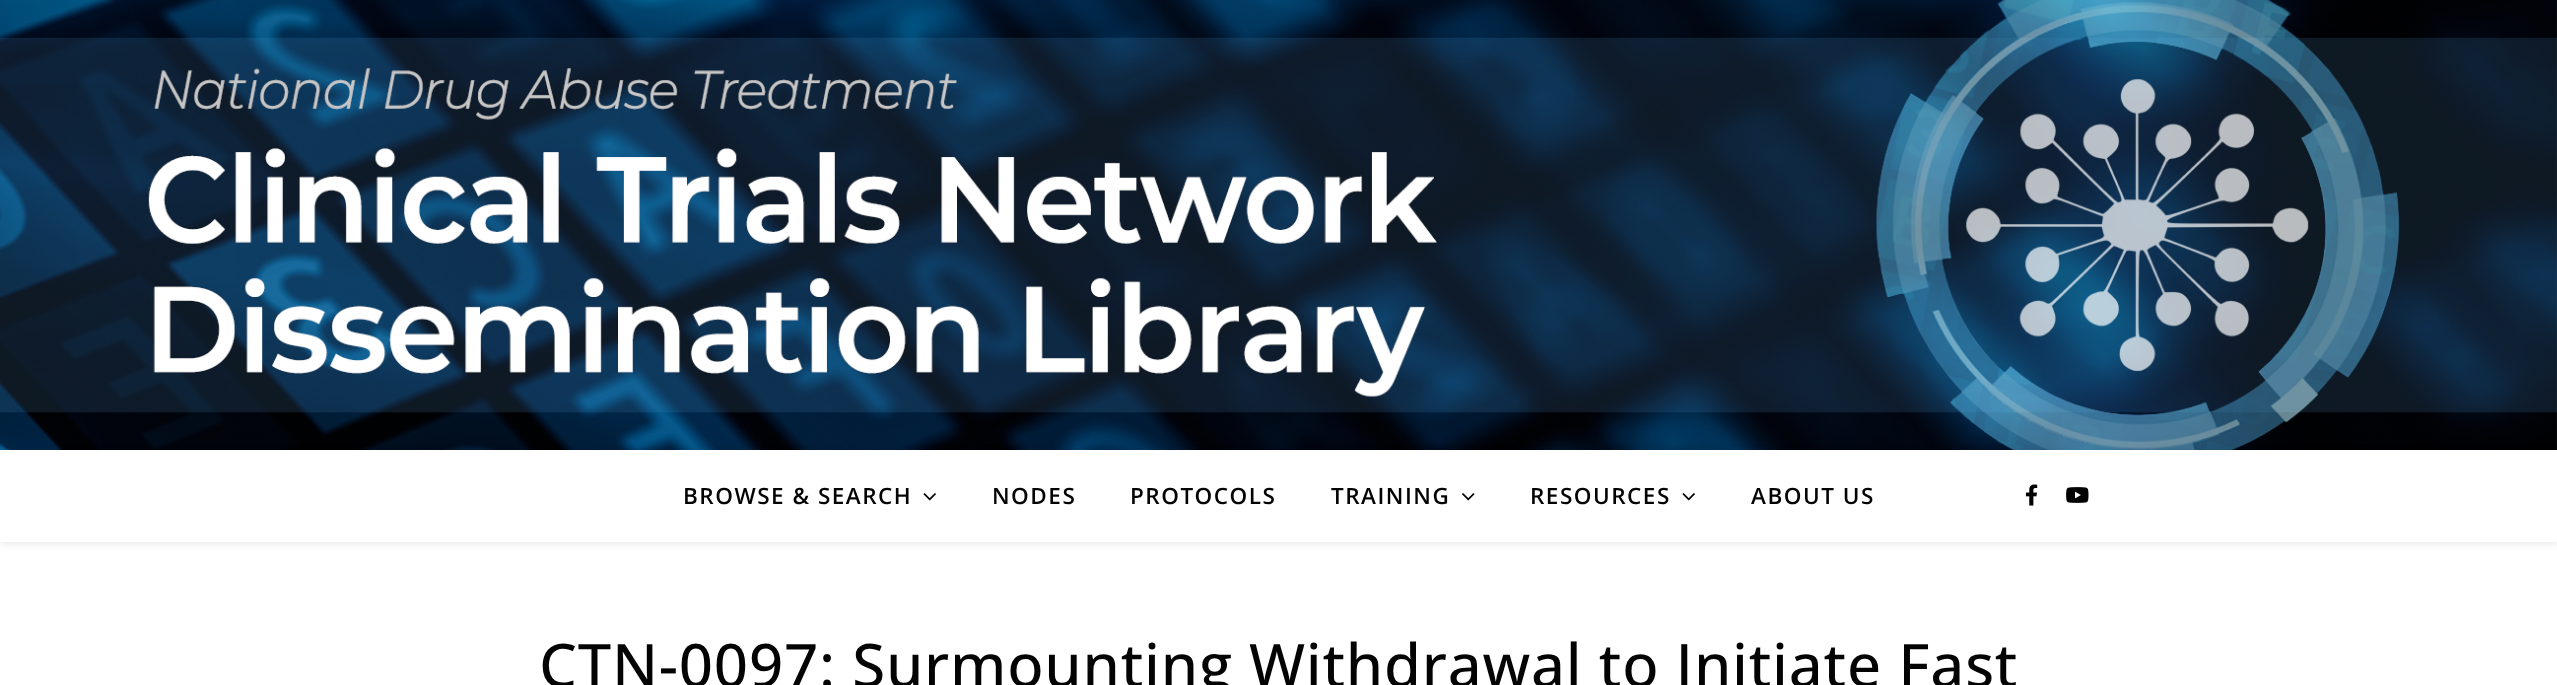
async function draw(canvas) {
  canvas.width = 2557
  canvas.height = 685
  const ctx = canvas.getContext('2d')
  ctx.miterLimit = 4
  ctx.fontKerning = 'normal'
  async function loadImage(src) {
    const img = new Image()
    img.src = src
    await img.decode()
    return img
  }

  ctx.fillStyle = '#fff'
  ctx.fillRect(0, 0, 2557, 685)
  ctx.drawImage(await loadImage('image0.png'), 0, 0, 2557, 450)
  ctx.fillStyle = '#0000001a'
  ctx.filter = 'blur(4px)'
  ctx.beginPath()
  ctx.rect(0, 452, 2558, 91)
  ctx.fill()
  ctx.filter = 'none'
  ctx.fillStyle = '#fff'
  ctx.fillRect(0, 450, 2557, 92)
  ctx.letterSpacing = '1.5px'
  ctx.font = '600 22.5px Open Sans'
  ctx.fillStyle = '#030303'
  ctx.fillText('BROWSE & SEARCH', 683, 504)
  ctx.drawImage(await loadImage('image1.png'), 923, 493, 13, 8)
  ctx.fillText('NODES', 992, 504)
  ctx.fillText('PROTOCOLS', 1130, 504)
  ctx.fillText('TRAINING', 1331, 504)
  ctx.drawImage(await loadImage('image2.png'), 1462, 493, 13, 8)
  ctx.fillText('RESOURCES', 1530, 504)
  ctx.drawImage(await loadImage('image1.png'), 1682, 493, 13, 8)
  ctx.fillText('ABOUT US', 1751, 504)
  ctx.drawImage(await loadImage('image3.png'), 2025, 484, 13, 22)
  ctx.drawImage(await loadImage('image4.png'), 2066, 487, 23, 16)
  ctx.letterSpacing = '0.75px'
  ctx.font = '500 60px Open Sans'
  ctx.fillText('CTN-0097: Surmounting Withdrawal to Initiate Fast', 539, 687)
}

draw(document.querySelector('canvas'))
